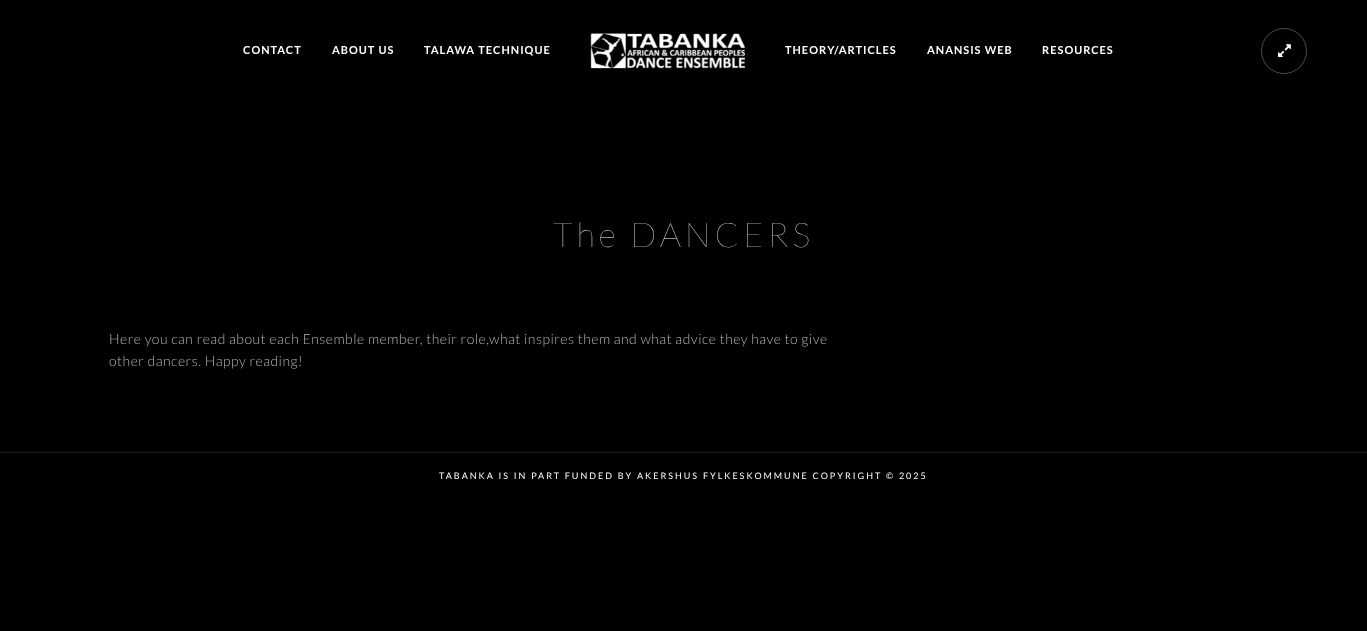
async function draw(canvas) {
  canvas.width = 1367
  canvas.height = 631
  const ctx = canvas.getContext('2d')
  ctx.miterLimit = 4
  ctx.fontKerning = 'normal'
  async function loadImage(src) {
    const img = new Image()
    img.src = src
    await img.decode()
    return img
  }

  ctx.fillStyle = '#000'
  ctx.fillRect(0, 0, 1367, 631)
  ctx.letterSpacing = '1px'
  ctx.font = 'bold 11px Lato'
  ctx.fillStyle = '#fff'
  ctx.fillText('CONTACT', 243, 54)
  ctx.fillText('ABOUT US', 332, 54)
  ctx.fillText('TALAWA TECHNIQUE', 424, 54)
  ctx.drawImage(await loadImage('image0.png'), 590, 33, 155, 36)
  ctx.fillText('THEORY/ARTICLES', 785, 54)
  ctx.fillText('ANANSIS WEB', 927, 54)
  ctx.fillText('RESOURCES', 1042, 54)
  ctx.beginPath()
  ctx.arc(1284, 51, 22.5, 0, 2 * Math.PI)
  ctx.strokeStyle = '#4d4d4d'
  ctx.stroke()
  ctx.drawImage(await loadImage('image1.png'), 1278, 44, 13, 14)
  ctx.letterSpacing = '4px'
  ctx.font = '100 34px Lato'
  ctx.fillText('The DANCERS', 553, 247)
  ctx.letterSpacing = '0.5px'
  ctx.font = '300 14px Lato'
  ctx.fillStyle = '#b3b3b3'
  ctx.fillText('Here you can read about each Ensemble member, their role,what inspires them and what advice they have to give', 109, 344)
  ctx.fillText('other dancers. Happy reading!', 109, 366)
  ctx.fillStyle = '#1a1a1a'
  ctx.fillRect(0, 452, 1367, 1)
  ctx.letterSpacing = '2px'
  ctx.font = '9px Lato'
  ctx.fillStyle = '#fff'
  ctx.fillText('TABANKA IS IN PART FUNDED BY AKERSHUS FYLKESKOMMUNE COPYRIGHT © 2025', 439, 479)
}

draw(document.querySelector('canvas'))
